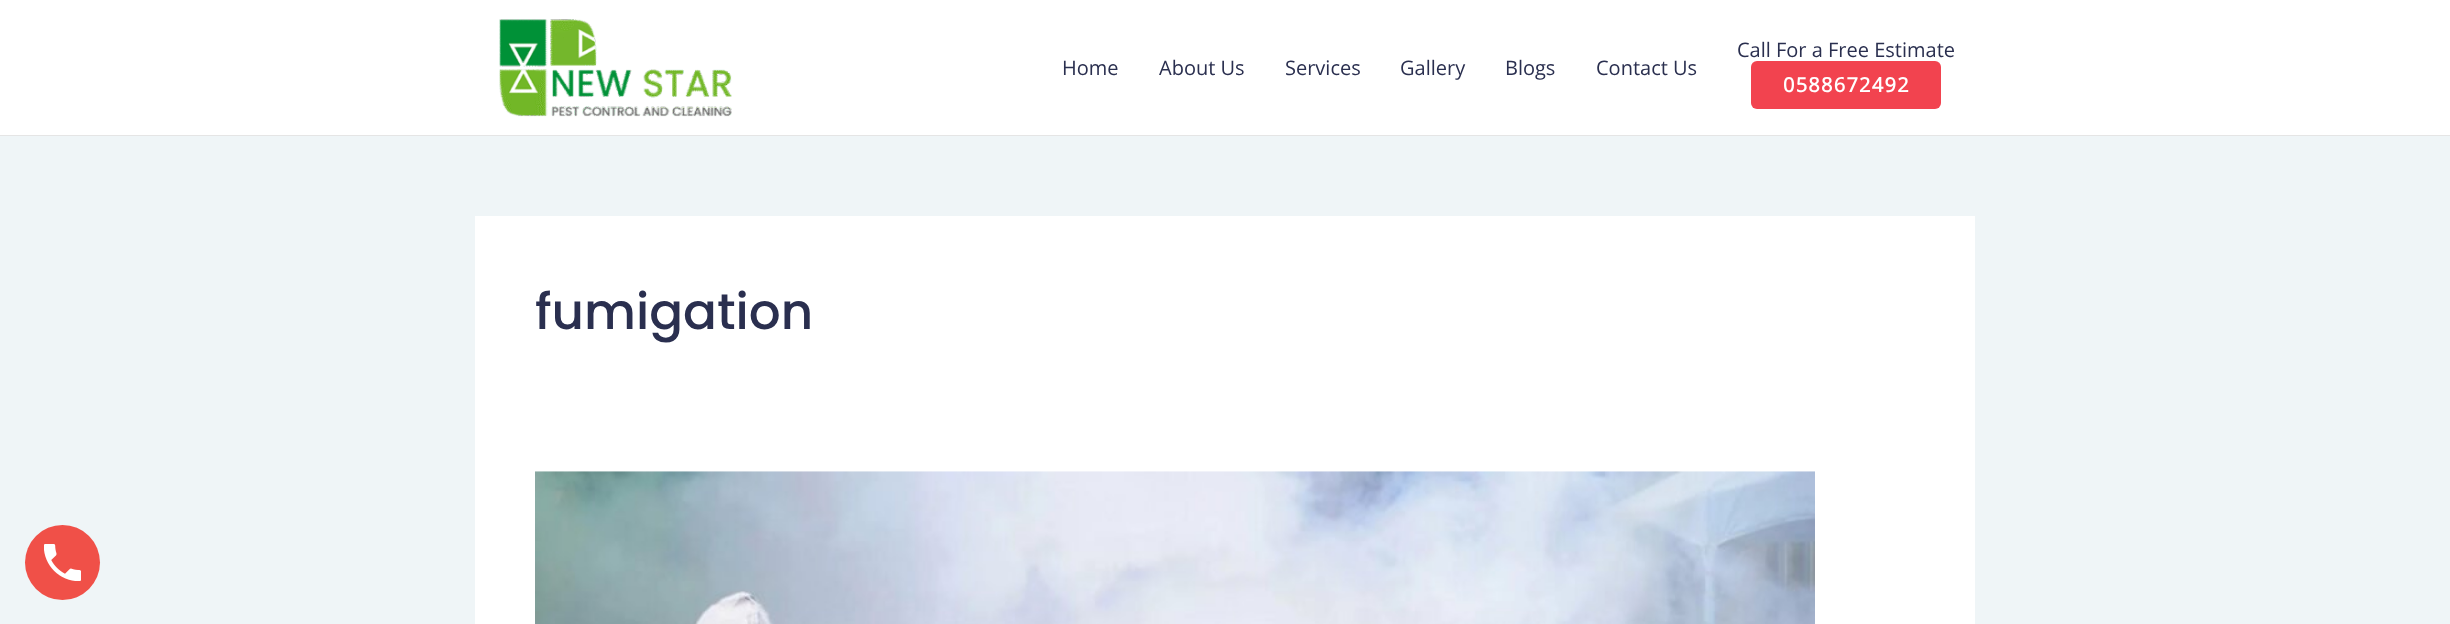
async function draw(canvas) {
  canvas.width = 2450
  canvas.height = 624
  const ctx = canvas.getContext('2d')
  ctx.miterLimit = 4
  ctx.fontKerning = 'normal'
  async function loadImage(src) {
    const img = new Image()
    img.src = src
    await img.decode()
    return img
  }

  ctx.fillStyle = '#eff5f7'
  ctx.fillRect(0, 0, 2450, 624)
  ctx.fillStyle = '#fff'
  ctx.fillRect(0, 0, 2450, 135)
  ctx.fillStyle = '#e5e5e5'
  ctx.fillRect(0, 135, 2450, 1)
  ctx.drawImage(await loadImage('image0.png'), 499, 19, 233, 98)
  ctx.font = '20px Open Sans'
  ctx.fillStyle = '#2a2f4f'
  ctx.fillText('Home', 1062, 75)
  ctx.fillText('About Us', 1159, 75)
  ctx.fillText('Services', 1285, 75)
  ctx.fillText('Gallery', 1400, 75)
  ctx.fillText('Blogs', 1505, 75)
  ctx.fillText('Contact Us', 1596, 75)
  ctx.fillText('Call For a Free Estimate', 1737, 57)
  ctx.fillStyle = '#f2434f'
  ctx.beginPath()
  ctx.roundRect(1751, 61, 190, 48, 6)
  ctx.fill()
  ctx.letterSpacing = '1.25px'
  ctx.font = 'bold 20px Open Sans'
  ctx.fillStyle = '#fff'
  ctx.fillText('0588672492', 1783, 92)
  ctx.fillRect(475, 216, 1500, 408)
  ctx.letterSpacing = '0px'
  ctx.font = '500 50px Poppins'
  ctx.fillStyle = '#2a2f4f'
  ctx.fillText('fumigation', 535, 329)
  ctx.drawImage(await loadImage('image1.png'), 535, 471, 1280, 153)
  ctx.fillStyle = '#f05048'
  ctx.beginPath()
  ctx.arc(62.5, 562.5, 37.5, 0, 2 * Math.PI)
  ctx.fill()
  ctx.drawImage(await loadImage('image2.png'), 44, 544, 37, 37)
}

draw(document.querySelector('canvas'))
